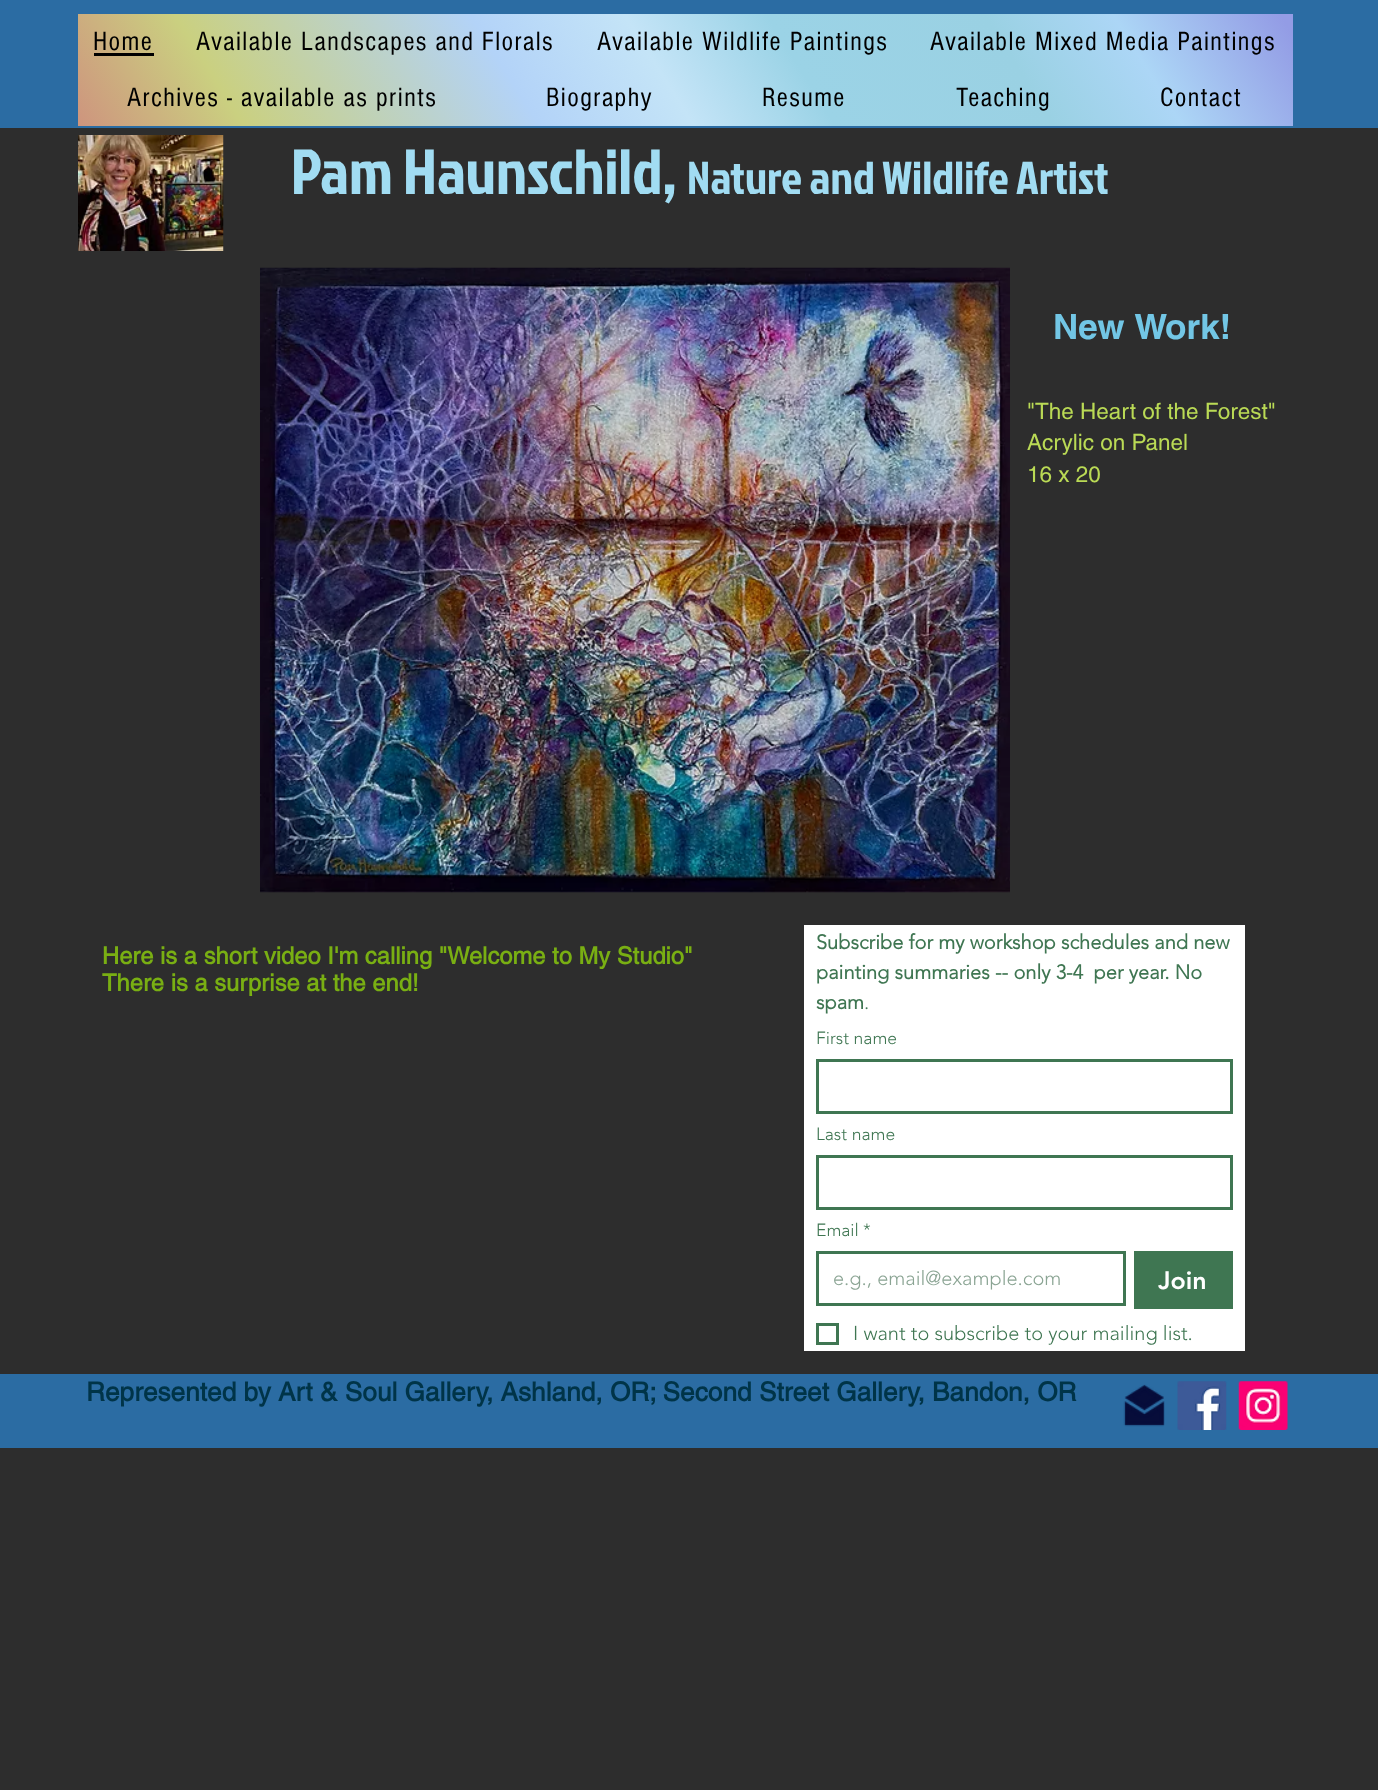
async function draw(canvas) {
  canvas.width = 1378
  canvas.height = 1790
  const ctx = canvas.getContext('2d')
  ctx.miterLimit = 4
  ctx.fontKerning = 'normal'
  async function loadImage(src) {
    const img = new Image()
    img.src = src
    await img.decode()
    return img
  }
  let gradient

  ctx.fillStyle = '#2d2d2d'
  ctx.fillRect(0, 0, 1378, 1790)
  ctx.fillStyle = '#2b6ca3'
  ctx.fillRect(0, 0, 1378, 128)
  gradient = ctx.createLinearGradient(223, 359, 1147, -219)
  gradient.addColorStop(0, '#ce947e')
  gradient.addColorStop(0.13, '#cad080')
  gradient.addColorStop(0.36, '#b3d3f8')
  gradient.addColorStop(0.48, '#c4e4f7')
  gradient.addColorStop(0.59, '#9bd3e6')
  gradient.addColorStop(0.76, '#9ad1e3')
  gradient.addColorStop(0.86, '#acd6f6')
  gradient.addColorStop(0.99, '#939ce5')
  ctx.fillStyle = gradient
  ctx.fillRect(78, 14, 1215, 112)
  ctx.letterSpacing = '1.4px'
  ctx.font = '27.5px "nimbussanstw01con"'
  ctx.fillStyle = '#000'
  ctx.fillText('Home', 93, 50)
  ctx.fillRect(94, 53, 60, 3)
  ctx.fillText('Available Landscapes and Florals', 196, 50)
  ctx.fillText('Available Wildlife Paintings', 597, 50)
  ctx.fillText('Available Mixed Media Paintings', 930, 50)
  ctx.fillText('Archives - available as prints', 127, 106)
  ctx.fillText('Biography', 546, 106)
  ctx.fillText('Resume', 762, 106)
  ctx.fillText('Teaching', 956, 106)
  ctx.fillText('Contact', 1160, 106)
  ctx.drawImage(await loadImage('image0.png'), 78, 135, 146, 116)
  ctx.letterSpacing = '0px'
  ctx.font = '63.75px Jockey One'
  ctx.fillStyle = '#a1dcf2'
  ctx.fillText('Pam Haunschild,', 291, 194)
  ctx.font = '46.25px Jockey One'
  ctx.fillText('Nature and Wildlife Artist', 687, 194)
  ctx.drawImage(await loadImage('image1.png'), 260, 267, 750, 626)
  ctx.font = 'bold 35px helvetica'
  ctx.fillStyle = '#72c6e5'
  ctx.fillText('New Work!', 1053, 339)
  ctx.font = '22.5px helvetica'
  ctx.fillStyle = '#bada55'
  ctx.fillText('"The Heart of the Forest"', 1027, 419)
  ctx.fillText('Acrylic on Panel', 1027, 450)
  ctx.fillText('16 x 20', 1027, 482)
  ctx.font = 'bold 23.75px "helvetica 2"'
  ctx.fillStyle = '#79af13'
  ctx.fillText('Here is a short video I\'m calling "Welcome to My Studio"', 102, 964)
  ctx.fillText('There is a surprise at the end!', 102, 991)
  ctx.fillStyle = '#fff'
  ctx.fillRect(804, 925, 441, 426)
  ctx.font = 'bold 20px "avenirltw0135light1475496"'
  ctx.fillStyle = '#3f7652'
  ctx.fillText('Subscribe for my workshop schedules and new', 816, 949)
  ctx.fillText('painting summaries -- only 3-4  per year. No', 816, 979)
  ctx.fillText('spam', 816, 1009)
  ctx.font = '300 20px "avenirltw0135light1475496"'
  ctx.fillText('.', 864, 1009)
  ctx.font = '300 17.5px "avenirltw0135light1475496"'
  ctx.fillText('First name', 816, 1044)
  ctx.strokeStyle = '#3f7652'
  ctx.lineWidth = 3
  ctx.strokeRect(817.5, 1060.5, 414, 52)
  ctx.fillText('Last name', 816, 1140)
  ctx.strokeRect(817.5, 1156.5, 414, 52)
  ctx.fillText('Email', 816, 1236)
  ctx.fillText('*', 863, 1236)
  ctx.strokeRect(817.5, 1252.5, 307, 52)
  ctx.font = '300 20px "avenirltw0135light1475496"'
  ctx.fillStyle = '#8aa493'
  ctx.fillText('e.g., email@example.com', 833, 1285)
  ctx.fillStyle = '#3f7652'
  ctx.fillRect(1134, 1251, 99, 58)
  ctx.font = '900 25px "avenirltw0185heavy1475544"'
  ctx.fillStyle = '#fff'
  ctx.fillText('Join', 1158, 1289)
  ctx.strokeRect(817.5, 1324.5, 20, 19)
  ctx.font = '300 20px "avenirltw0135light1475496"'
  ctx.fillStyle = '#3f7652'
  ctx.fillText('I want to subscribe to your mailing list.', 853, 1340)
  ctx.fillStyle = '#2b6ca3'
  ctx.fillRect(0, 1374, 1378, 74)
  ctx.font = 'bold 26.25px "helvetica 2"'
  ctx.fillStyle = '#003448'
  ctx.fillText('Represented by Art & Soul Gallery, Ashland, OR; Second Street Gallery, Bandon, OR', 86, 1401)
  ctx.drawImage(await loadImage('image2.png'), 1123, 1384, 42, 43)
  ctx.drawImage(await loadImage('image3.png'), 1177, 1381, 50, 49)
  ctx.drawImage(await loadImage('image4.png'), 1238, 1381, 50, 49)
}

draw(document.querySelector('canvas'))
